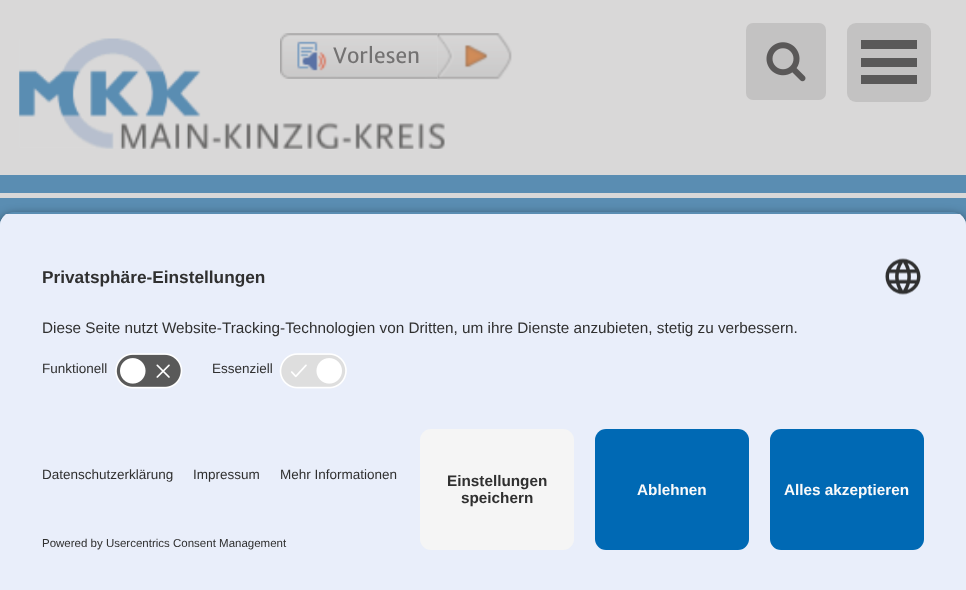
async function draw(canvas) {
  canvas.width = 966
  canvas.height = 590
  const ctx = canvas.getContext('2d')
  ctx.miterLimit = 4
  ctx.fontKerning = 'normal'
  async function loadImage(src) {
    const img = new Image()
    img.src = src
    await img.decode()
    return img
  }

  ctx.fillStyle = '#5a8db2'
  ctx.fillRect(0, 0, 966, 590)
  ctx.fillStyle = '#d9d8d8'
  ctx.fillRect(0, 0, 966, 198)
  ctx.drawImage(await loadImage('image0.png'), 19, 38, 426, 111)
  ctx.fillStyle = '#c3c2c2'
  ctx.beginPath()
  ctx.roundRect(746, 23, 80, 77, 7)
  ctx.fill()
  ctx.drawImage(await loadImage('image1.png'), 766, 42, 40, 40)
  ctx.beginPath()
  ctx.roundRect(847, 23, 84, 79, 9)
  ctx.fill()
  ctx.fillStyle = '#5a5959'
  ctx.fillRect(861, 75, 56, 9)
  ctx.fillRect(861, 58, 56, 9)
  ctx.fillRect(861, 40, 56, 9)
  ctx.drawImage(await loadImage('image2.png'), 280, 33, 158, 46)
  ctx.drawImage(await loadImage('image3.png'), 297, 41, 30, 30)
  ctx.font = '21px Merriweather Sans'
  ctx.fillStyle = '#737272'
  ctx.fillText('Vorlesen', 333, 63)
  ctx.drawImage(await loadImage('image4.png'), 437, 33, 75, 47)
  ctx.fillStyle = '#5a8db2'
  ctx.fillRect(0, 175, 966, 18)
  ctx.save()
  ctx.beginPath()
  ctx.moveTo(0, 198)
  ctx.lineTo(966, 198)
  ctx.lineTo(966, 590)
  ctx.lineTo(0, 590)
  ctx.closePath()
  ctx.moveTo(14, 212)
  ctx.lineTo(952, 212)
  ctx.bezierCurveTo(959.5, 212, 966, 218.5, 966, 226)
  ctx.lineTo(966, 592)
  ctx.lineTo(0, 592)
  ctx.lineTo(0, 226)
  ctx.bezierCurveTo(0, 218.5, 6.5, 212, 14, 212)
  ctx.closePath()
  ctx.clip('evenodd')
  ctx.fillStyle = '#000000cc'
  ctx.filter = 'blur(6px)'
  ctx.beginPath()
  ctx.roundRect(0, 217, 966, 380, 14)
  ctx.fill()
  ctx.filter = 'none'
  ctx.restore()
  ctx.save()
  ctx.beginPath()
  ctx.roundRect(0, 212, 966, 203, [14, 14, 0, 0])
  ctx.clip()
  ctx.fillStyle = '#e9eefa'
  ctx.fillRect(0, 214, 966, 201)
  ctx.fillRect(0, 214, 966, 131)
  ctx.restore()
  ctx.font = 'bold 17.25px Liberation Sans'
  ctx.fillStyle = '#303030'
  ctx.fillText('Privatsphäre-Einstellungen', 42, 283)
  ctx.drawImage(await loadImage('image5.png'), 885, 258, 36, 37)
  ctx.font = '15.3px Liberation Sans'
  ctx.fillText('Diese Seite nutzt Website-Tracking-Technologien von Dritten, um ihre Dienste anzubieten, stetig zu verbessern.', 42, 333)
  ctx.font = '13.5px Liberation Sans'
  ctx.fillText('Funktionell', 42, 373)
  ctx.drawImage(await loadImage('image6.png'), 115, 353, 68, 36)
  ctx.fillText('Essenziell', 212, 373)
  ctx.drawImage(await loadImage('image7.png'), 279, 353, 68, 36)
  ctx.fillStyle = '#e9eefa'
  ctx.fillRect(0, 415, 966, 175)
  ctx.fillStyle = '#303030'
  ctx.fillText('Datenschutzerklärung', 42, 479)
  ctx.fillText('Impressum', 193, 479)
  ctx.fillText('Mehr Informationen', 280, 479)
  ctx.font = '11.5px Liberation Sans'
  ctx.fillText('Powered by Usercentrics Consent Management', 42, 547)
  ctx.fillStyle = '#f5f5f5'
  ctx.beginPath()
  ctx.roundRect(420, 429, 154, 121, 11)
  ctx.fill()
  ctx.font = 'bold 15.3px Liberation Sans'
  ctx.fillStyle = '#303030'
  ctx.fillText('Einstellungen', 447, 486)
  ctx.fillText('speichern', 461, 503)
  ctx.fillStyle = '#0069b4'
  ctx.beginPath()
  ctx.roundRect(595, 429, 154, 121, 11)
  ctx.fill()
  ctx.fillStyle = '#fafafa'
  ctx.fillText('Ablehnen', 637, 495)
  ctx.fillStyle = '#0069b4'
  ctx.beginPath()
  ctx.roundRect(770, 429, 154, 121, 11)
  ctx.fill()
  ctx.fillStyle = '#fafafa'
  ctx.fillText('Alles akzeptieren', 784, 495)
}

draw(document.querySelector('canvas'))
